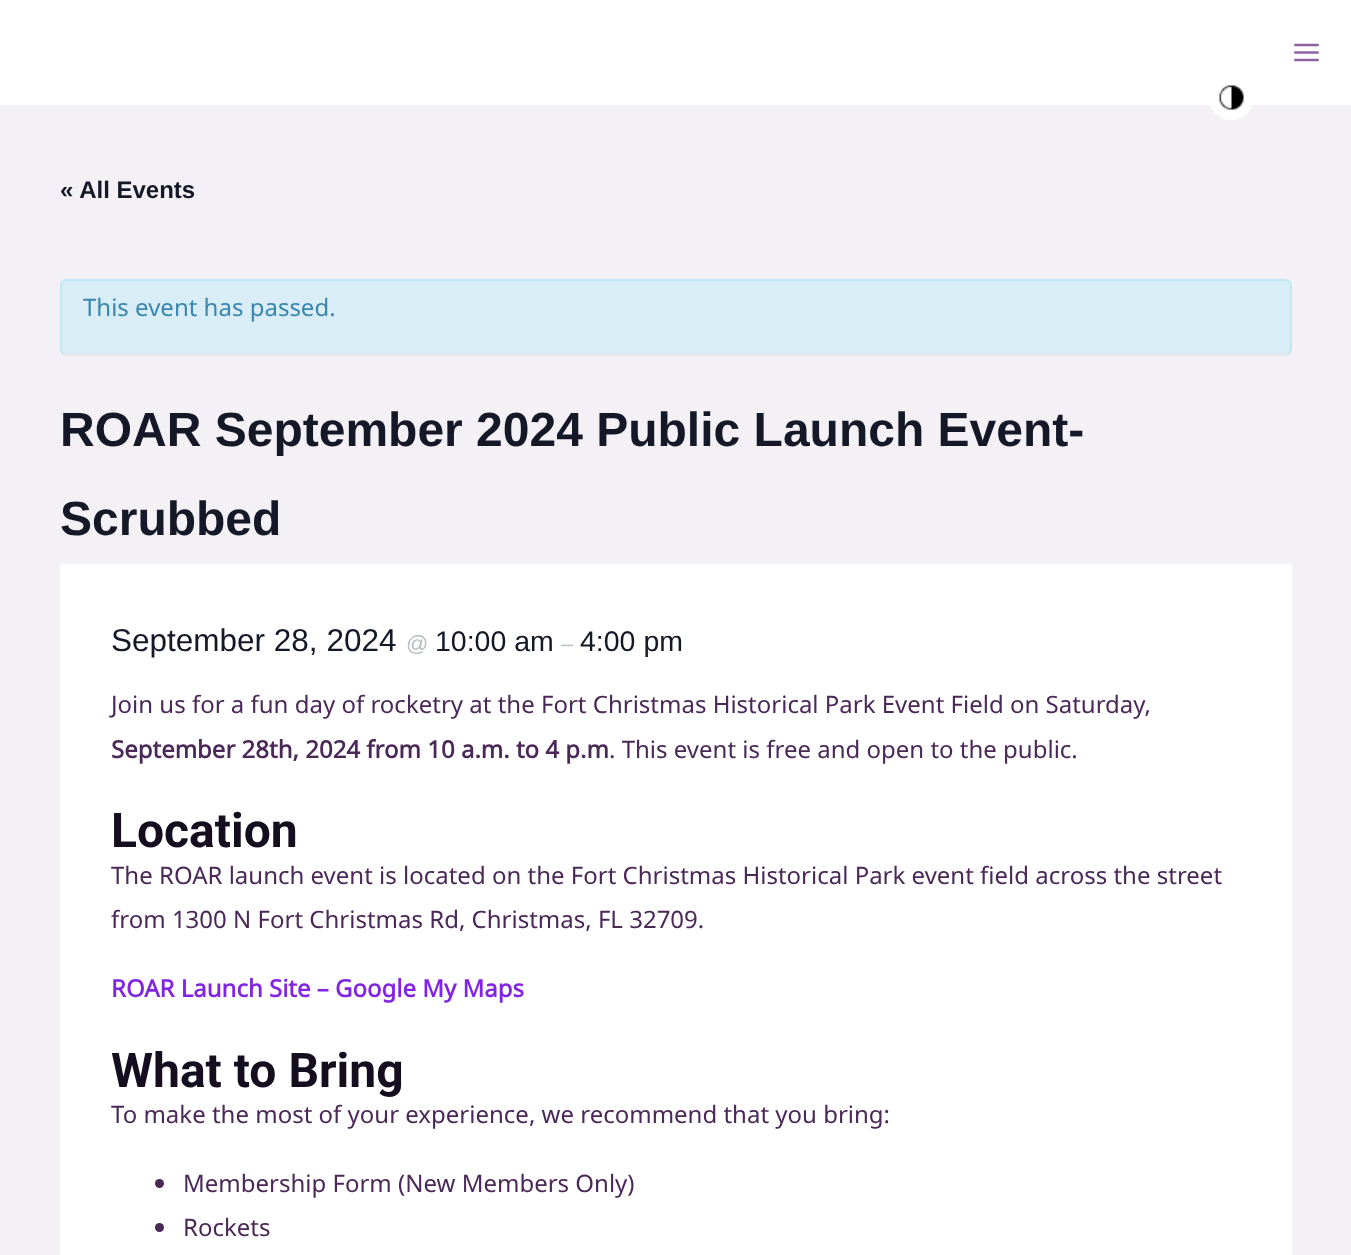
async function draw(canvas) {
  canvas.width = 1351
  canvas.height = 1255
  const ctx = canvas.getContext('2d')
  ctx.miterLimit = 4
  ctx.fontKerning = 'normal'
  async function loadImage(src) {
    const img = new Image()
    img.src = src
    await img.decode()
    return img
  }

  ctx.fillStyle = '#f3f1f6'
  ctx.fillRect(0, 0, 1351, 1255)
  ctx.fillStyle = '#fff'
  ctx.fillRect(0, 0, 1351, 105)
  ctx.drawImage(await loadImage('image0.png'), 1210, 85, 43, 35)
  ctx.drawImage(await loadImage('image1.png'), 1294, 43, 25, 19)
  ctx.font = 'bold 24px Liberation Sans'
  ctx.fillStyle = '#141827'
  ctx.fillText('« All Events', 60, 198)
  ctx.fillStyle = '#d9edf7'
  ctx.beginPath()
  ctx.roundRect(60, 279, 1232, 77, 6)
  ctx.fill()
  ctx.beginPath()
  ctx.moveTo(1289, 353)
  ctx.bezierCurveTo(1288, 354, 1287, 355, 1285.5, 355)
  ctx.lineTo(66, 355)
  ctx.bezierCurveTo(64.5, 355, 63.5, 354, 62.5, 353)
  ctx.strokeStyle = '#e4e4e4'
  ctx.lineWidth = 1.5
  ctx.stroke()
  ctx.beginPath()
  ctx.moveTo(62.5, 353)
  ctx.bezierCurveTo(61.5, 352, 61, 351, 61, 349.5)
  ctx.lineTo(61, 285)
  ctx.bezierCurveTo(61, 283.5, 61.5, 282.5, 62.5, 281.5)
  ctx.bezierCurveTo(63.5, 280.5, 64.5, 280, 66, 280)
  ctx.lineTo(1285.5, 280)
  ctx.bezierCurveTo(1287, 280, 1288, 280.5, 1289, 281.5)
  ctx.bezierCurveTo(1290, 282.5, 1291, 283.5, 1291, 285)
  ctx.lineTo(1291, 349.5)
  ctx.bezierCurveTo(1291, 351, 1290, 352, 1289, 353)
  ctx.strokeStyle = '#bce8f1'
  ctx.stroke()
  ctx.font = '24px Noto Sans Javanese'
  ctx.fillStyle = '#3a87ad'
  ctx.fillText('This event has passed.', 83, 316)
  ctx.font = 'bold 48px Liberation Sans'
  ctx.fillStyle = '#141827'
  ctx.fillText('ROAR September 2024 Public Launch Event-', 60, 446)
  ctx.fillText('Scrubbed', 60, 535)
  ctx.fillStyle = '#fff'
  ctx.fillRect(60, 564, 1232, 691)
  ctx.font = '31.5px Liberation Sans'
  ctx.fillStyle = '#141827'
  ctx.fillText('September 28, 2024', 111, 651)
  ctx.font = '22px Liberation Sans'
  ctx.fillStyle = '#b9bec2'
  ctx.fillText('@', 406, 651)
  ctx.font = '28.5px Liberation Sans'
  ctx.fillStyle = '#141827'
  ctx.fillText('10:00 am', 435, 651)
  ctx.font = '22px Liberation Sans'
  ctx.fillStyle = '#b9bec2'
  ctx.fillText('–', 561, 651)
  ctx.font = '28.5px Liberation Sans'
  ctx.fillStyle = '#141827'
  ctx.fillText('4:00 pm', 580, 651)
  ctx.font = '24px Noto Sans Javanese'
  ctx.fillStyle = '#4a2857'
  ctx.fillText('Join us for a fun day of rocketry at the Fort Christmas Historical Park Event Field on Saturday,', 111, 713)
  ctx.font = 'bold 24px Noto Sans Javanese'
  ctx.fillText('September 28th, 2024 from 10 a.m. to 4 p.m', 111, 758)
  ctx.font = '24px Noto Sans Javanese'
  ctx.fillText('. This event is free and open to the public.', 609, 758)
  ctx.font = 'bold 48px Roboto'
  ctx.fillStyle = '#150e1f'
  ctx.fillText('Location', 111, 847)
  ctx.font = '24px Noto Sans Javanese'
  ctx.fillStyle = '#4a2857'
  ctx.fillText('The ROAR launch event is located on the Fort Christmas Historical Park event field across the street', 111, 884)
  ctx.fillText('from 1300 N Fort Christmas Rd, Christmas, FL 32709.', 111, 928)
  ctx.font = 'bold 24px Noto Sans Javanese'
  ctx.fillStyle = '#8224e3'
  ctx.fillText('ROAR Launch Site – Google My Maps', 111, 997)
  ctx.font = 'bold 48px Roboto'
  ctx.fillStyle = '#150e1f'
  ctx.fillText('What to Bring', 111, 1087)
  ctx.font = '24px Noto Sans Javanese'
  ctx.fillStyle = '#4a2857'
  ctx.fillText('To make the most of your experience, we recommend that you bring:', 111, 1123)
  ctx.beginPath()
  ctx.arc(159.5, 1183.5, 4.5, 0, 2 * Math.PI)
  ctx.fill()
  ctx.fillText('Membership Form (New Members Only)', 183, 1192)
  ctx.beginPath()
  ctx.arc(159.5, 1227.5, 4.5, 0, 2 * Math.PI)
  ctx.fill()
  ctx.fillText('Rockets', 183, 1236)
}

draw(document.querySelector('canvas'))
